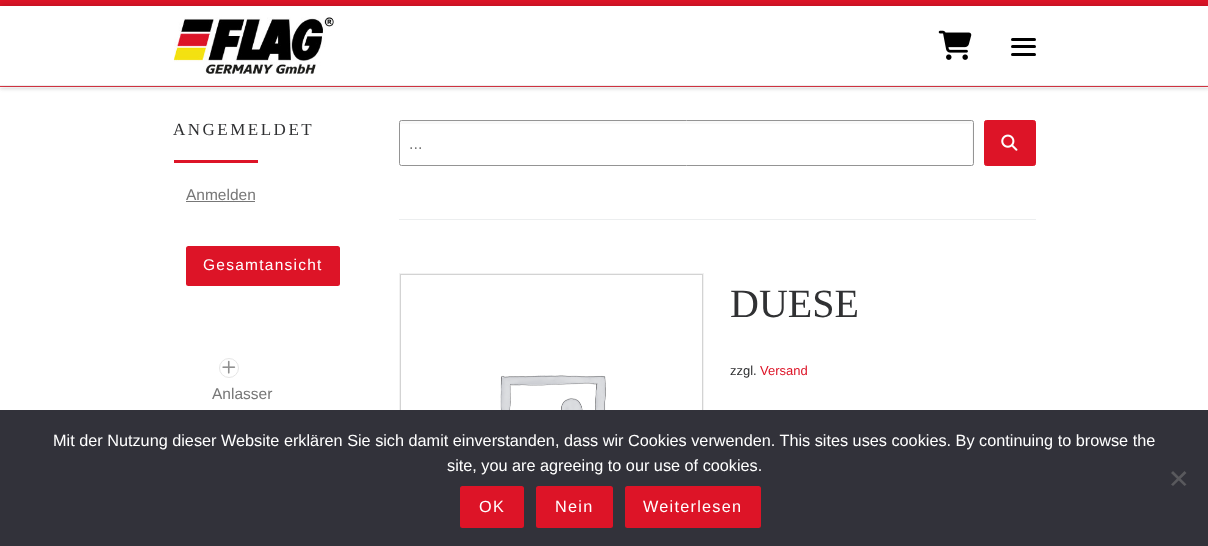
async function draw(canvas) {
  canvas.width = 1208
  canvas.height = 546
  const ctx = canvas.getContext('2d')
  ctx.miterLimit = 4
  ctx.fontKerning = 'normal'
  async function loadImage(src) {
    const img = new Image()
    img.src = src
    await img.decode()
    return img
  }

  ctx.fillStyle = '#fff'
  ctx.fillRect(0, 0, 1208, 546)
  ctx.fillStyle = '#66666614'
  ctx.filter = 'blur(1px)'
  ctx.beginPath()
  ctx.rect(0, 3, 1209, 87)
  ctx.fill()
  ctx.filter = 'none'
  ctx.fillStyle = '#fff'
  ctx.fillRect(0, 87, 1208, 1)
  ctx.fillStyle = '#dd1427'
  ctx.fillRect(0, 0, 1208, 6)
  ctx.fillRect(0, 86, 1208, 1)
  ctx.fillStyle = '#ffffff26'
  ctx.beginPath()
  ctx.moveTo(0, 86)
  ctx.lineTo(0, 88)
  ctx.lineTo(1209, 88)
  ctx.lineTo(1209, 8)
  ctx.lineTo(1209, 86)
  ctx.closePath()
  ctx.fill()
  ctx.fillStyle = '#00000033'
  ctx.filter = 'blur(3px)'
  ctx.beginPath()
  ctx.rect(0, 6, 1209, 80)
  ctx.fill()
  ctx.filter = 'none'
  ctx.fillStyle = '#fff'
  ctx.fillRect(0, 6, 1208, 79)
  ctx.drawImage(await loadImage('image0.png'), 173, 17, 161, 57)
  ctx.drawImage(await loadImage('image1.png'), 938, 30, 34, 30)
  ctx.fillStyle = '#000'
  ctx.beginPath()
  ctx.roundRect(1011, 38, 25, 3, 1.5)
  ctx.fill()
  ctx.beginPath()
  ctx.roundRect(1011, 45, 25, 3, 1.5)
  ctx.fill()
  ctx.beginPath()
  ctx.roundRect(1011, 53, 25, 3, 1.5)
  ctx.fill()
  ctx.fillStyle = '#ececec'
  ctx.fillRect(0, 85, 1208, 1)
  ctx.letterSpacing = '2.5px'
  ctx.font = '17px Liberation Serif'
  ctx.fillStyle = '#303133'
  ctx.fillText('ANGEMELDET', 173, 135)
  ctx.fillStyle = '#dd1427'
  ctx.fillRect(174, 160, 84, 3)
  ctx.letterSpacing = '0px'
  ctx.font = '15.5px Liberation Sans'
  ctx.fillStyle = '#777'
  ctx.fillText('Anmelden', 186, 200)
  ctx.fillRect(186, 201, 69, 1)
  ctx.fillStyle = '#dd1427'
  ctx.beginPath()
  ctx.roundRect(187.5, 247.5, 151, 37, 1)
  ctx.fill()
  ctx.strokeStyle = '#dd1427'
  ctx.lineWidth = 3
  ctx.stroke()
  ctx.letterSpacing = '1.25px'
  ctx.fillStyle = '#fff'
  ctx.fillText('Gesamtansicht', 203, 270)
  ctx.beginPath()
  ctx.arc(229, 368, 9.5, 0, 2 * Math.PI)
  ctx.strokeStyle = '#e6e6e6'
  ctx.lineWidth = 1
  ctx.stroke()
  ctx.drawImage(await loadImage('image2.png'), 222, 360, 14, 14)
  ctx.letterSpacing = '0px'
  ctx.fillStyle = '#777'
  ctx.fillText('Anlasser', 212, 399)
  ctx.fillStyle = '#f9f9f9'
  ctx.beginPath()
  ctx.moveTo(401, 124)
  ctx.lineTo(971, 124)
  ctx.bezierCurveTo(972, 124, 972, 124, 972, 125)
  ctx.lineTo(972, 165)
  ctx.bezierCurveTo(973, 165, 973, 165, 973, 164)
  ctx.lineTo(973, 122)
  ctx.bezierCurveTo(973, 121, 973, 121, 972, 121)
  ctx.lineTo(401, 121)
  ctx.bezierCurveTo(400, 121, 400, 121, 400, 122)
  ctx.lineTo(400, 125)
  ctx.closePath()
  ctx.fill()
  ctx.beginPath()
  ctx.roundRect(399.5, 120.5, 574, 45, 2)
  ctx.strokeStyle = '#949494'
  ctx.stroke()
  ctx.font = '16px Liberation Sans'
  ctx.fillStyle = '#777'
  ctx.fillText('...', 409, 149)
  ctx.fillStyle = '#dd1427'
  ctx.beginPath()
  ctx.roundRect(984.5, 120.5, 51, 45, 2)
  ctx.fill()
  ctx.strokeStyle = '#dd1427'
  ctx.stroke()
  ctx.drawImage(await loadImage('image3.png'), 1001, 134, 17, 17)
  ctx.fillStyle = '#eceeef'
  ctx.fillRect(399, 219, 637, 1)
  ctx.strokeStyle = '#f2f2f2'
  ctx.strokeRect(399.5, 273.5, 304, 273)
  ctx.strokeStyle = '#d3d3d3'
  ctx.strokeRect(400.5, 274.5, 302, 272)
  ctx.drawImage(await loadImage('image4.png'), 500, 375, 106, 35)
  ctx.font = '40px Liberation Serif'
  ctx.fillStyle = '#303133'
  ctx.fillText('DUESE', 730, 317)
  ctx.font = '13px Liberation Sans'
  ctx.fillText('zzgl.', 730, 375)
  ctx.fillStyle = '#dd1427'
  ctx.fillText('Versand', 760, 375)
  ctx.fillStyle = '#32323a'
  ctx.fillRect(0, 410, 1208, 136)
  ctx.font = '16.25px Liberation Sans'
  ctx.fillStyle = '#fff'
  ctx.fillText('Mit der Nutzung dieser Website erklären Sie sich damit einverstanden, dass wir Cookies verwenden. This sites uses cookies. By continuing to browse the', 53, 446)
  ctx.fillText('site, you are agreeing to our use of cookies.', 447, 471)
  ctx.fillStyle = '#59595d'
  ctx.beginPath()
  ctx.moveTo(1184.5, 471)
  ctx.lineTo(1186.5, 473)
  ctx.lineTo(1173, 486)
  ctx.lineTo(1171, 484.5)
  ctx.closePath()
  ctx.fill()
  ctx.beginPath()
  ctx.moveTo(1171, 473)
  ctx.lineTo(1173, 471)
  ctx.lineTo(1186.5, 484.5)
  ctx.lineTo(1184.5, 486)
  ctx.closePath()
  ctx.fill()
  ctx.fillStyle = '#dd1427'
  ctx.beginPath()
  ctx.roundRect(461.5, 487.5, 61, 39, 1)
  ctx.fill()
  ctx.strokeStyle = '#dd1427'
  ctx.lineWidth = 3
  ctx.stroke()
  ctx.letterSpacing = '1.25px'
  ctx.fillStyle = '#fff'
  ctx.fillText('OK', 479, 512)
  ctx.fillStyle = '#dd1427'
  ctx.beginPath()
  ctx.roundRect(537.5, 487.5, 74, 39, 1)
  ctx.fill()
  ctx.stroke()
  ctx.fillStyle = '#fff'
  ctx.fillText('Nein', 555, 512)
  ctx.fillStyle = '#dd1427'
  ctx.beginPath()
  ctx.roundRect(626.5, 487.5, 133, 39, 1)
  ctx.fill()
  ctx.stroke()
  ctx.fillStyle = '#fff'
  ctx.fillText('Weiterlesen', 643, 512)
}

draw(document.querySelector('canvas'))
